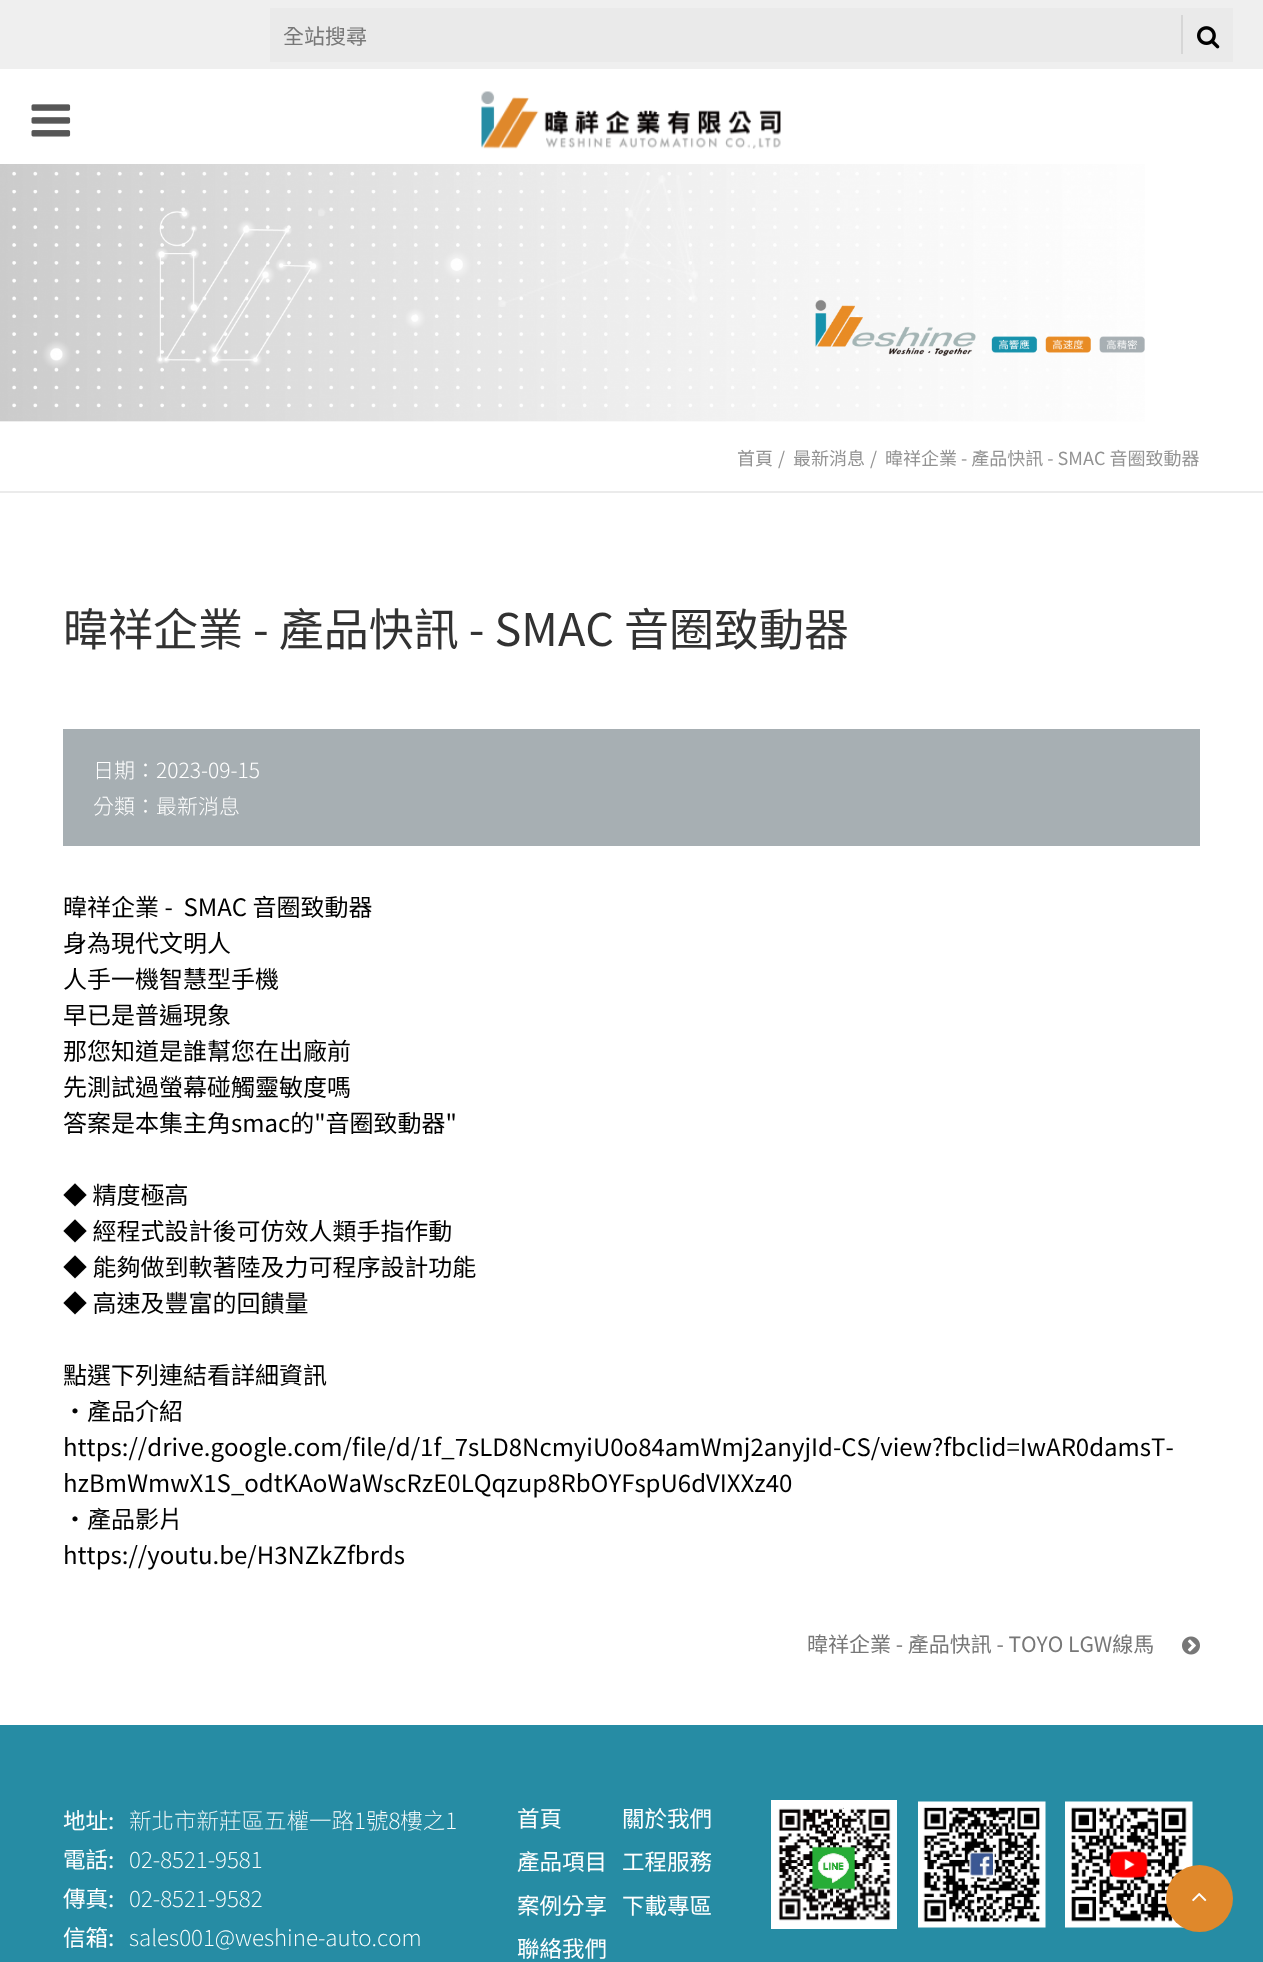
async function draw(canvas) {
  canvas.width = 1263
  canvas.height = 1962
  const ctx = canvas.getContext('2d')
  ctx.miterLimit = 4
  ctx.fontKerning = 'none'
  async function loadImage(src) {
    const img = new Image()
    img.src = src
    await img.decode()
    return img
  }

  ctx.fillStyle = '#fff'
  ctx.fillRect(0, 0, 1263, 1962)
  ctx.fillStyle = '#efefef'
  ctx.fillRect(0, 0, 1263, 69)
  ctx.fillStyle = '#eaeaea'
  ctx.fillRect(270, 8, 963, 54)
  ctx.font = '21px Noto Sans TC'
  ctx.fillStyle = '#777'
  ctx.fillText('全站搜尋', 283, 44)
  ctx.fillStyle = '#d6d6d6'
  ctx.fillRect(1181, 15, 2, 39)
  ctx.drawImage(await loadImage('image0.png'), 1197, 26, 23, 23)
  ctx.drawImage(await loadImage('image1.png'), 481, 91, 300, 58)
  ctx.drawImage(await loadImage('image2.png'), 31, 104, 40, 33)
  ctx.drawImage(await loadImage('image3.png'), 0, 164, 1145, 258)
  ctx.drawImage(await loadImage('image4.png'), 318, 175, 380, 132)
  ctx.fillStyle = '#ebebeb'
  ctx.fillRect(0, 491, 1263, 2)
  ctx.font = '18px Noto Sans TC'
  ctx.fillStyle = '#939393'
  ctx.fillText('首頁', 737, 465)
  ctx.fillText('/', 778, 465)
  ctx.fillText('最新消息', 793, 465)
  ctx.fillText('/', 870, 465)
  ctx.fillText('暐祥企業 - 產品快訊 - SMAC 音圈致動器', 885, 465)
  ctx.font = '45px Noto Sans TC'
  ctx.fillStyle = '#323232'
  ctx.fillText('暐祥企業 - 產品快訊 - SMAC 音圈致動器', 63, 646)
  ctx.fillStyle = '#a7afb3'
  ctx.fillRect(63, 729, 1137, 117)
  ctx.font = '300 21px Noto Sans TC'
  ctx.fillStyle = '#fff'
  ctx.fillText('日期：2023-09-15', 93, 778)
  ctx.fillText('分類：最新消息', 93, 814)
  ctx.font = '24px Noto Sans TC'
  ctx.fillStyle = '#000'
  ctx.fillText('暐祥企業 -  SMAC 音圈致動器', 63, 916)
  ctx.fillText('身為現代文明人', 63, 952)
  ctx.fillText('人手一機智慧型手機', 63, 988)
  ctx.fillText('早已是普遍現象', 63, 1024)
  ctx.fillText('那您知道是誰幫您在出廠前', 63, 1060)
  ctx.fillText('先測試過螢幕碰觸靈敏度嗎', 63, 1096)
  ctx.fillText('答案是本集主角smac的"音圈致動器"', 63, 1132)
  ctx.fillText('◆ 精度極高', 63, 1204)
  ctx.fillText('◆ 經程式設計後可仿效人類手指作動', 63, 1240)
  ctx.fillText('◆ 能夠做到軟著陸及力可程序設計功能', 63, 1276)
  ctx.fillText('◆ 高速及豐富的回饋量', 63, 1312)
  ctx.fillText('點選下列連結看詳細資訊', 63, 1384)
  ctx.fillText('‧產品介紹', 63, 1420)
  ctx.fillText('https://drive.google.com/file/d/1f_7sLD8NcmyiU0o84amWmj2anyjId-CS/view?fbclid=IwAR0damsT-', 63, 1456)
  ctx.fillText('hzBmWmwX1S_odtKAoWaWscRzE0LQqzup8RbOYFspU6dVIXXz40', 63, 1492)
  ctx.fillText('‧產品影片', 63, 1528)
  ctx.fillText('https://youtu.be/H3NZkZfbrds', 63, 1564)
  ctx.font = '21px Noto Sans TC'
  ctx.fillStyle = '#777'
  ctx.fillText('暐祥企業 - 產品快訊 - TOYO LGW線馬', 807, 1652)
  ctx.drawImage(await loadImage('image5.png'), 1182, 1636, 18, 19)
  ctx.fillStyle = '#268ca4'
  ctx.fillRect(0, 1725, 1263, 237)
  ctx.font = '22.5px Noto Sans TC'
  ctx.fillStyle = '#fff'
  ctx.fillText('地址:', 63, 1829)
  ctx.font = '200 22.5px Noto Sans TC'
  ctx.fillText('新北市新莊區五權一路1號8樓之1', 129, 1829)
  ctx.font = '22.5px Noto Sans TC'
  ctx.fillText('電話:', 63, 1868)
  ctx.font = '200 22.5px Noto Sans TC'
  ctx.fillText('02-8521-9581', 129, 1868)
  ctx.font = '22.5px Noto Sans TC'
  ctx.fillText('傳真:', 63, 1907)
  ctx.font = '200 22.5px Noto Sans TC'
  ctx.fillText('02-8521-9582', 129, 1907)
  ctx.font = '22.5px Noto Sans TC'
  ctx.fillText('信箱:', 63, 1946)
  ctx.font = '200 22.5px Noto Sans TC'
  ctx.fillText('sales001@weshine-auto.com', 129, 1946)
  ctx.font = '22.5px Noto Sans TC'
  ctx.fillText('首頁', 517, 1827)
  ctx.fillText('關於我們', 622, 1827)
  ctx.fillText('產品項目', 517, 1870)
  ctx.fillText('工程服務', 622, 1870)
  ctx.fillText('案例分享', 517, 1914)
  ctx.fillText('下載專區', 622, 1914)
  ctx.fillText('聯絡我們', 517, 1957)
  ctx.drawImage(await loadImage('image6.png'), 771, 1800, 126, 129)
  ctx.drawImage(await loadImage('image7.png'), 918, 1801, 128, 127)
  ctx.drawImage(await loadImage('image8.png'), 1065, 1801, 128, 127)
  ctx.fillStyle = '#df882b'
  ctx.beginPath()
  ctx.arc(1199.5, 1898.5, 33.5, 0, 2 * Math.PI)
  ctx.fill()
  ctx.drawImage(await loadImage('image9.png'), 1192, 1892, 15, 10)
}

draw(document.querySelector('canvas'))
